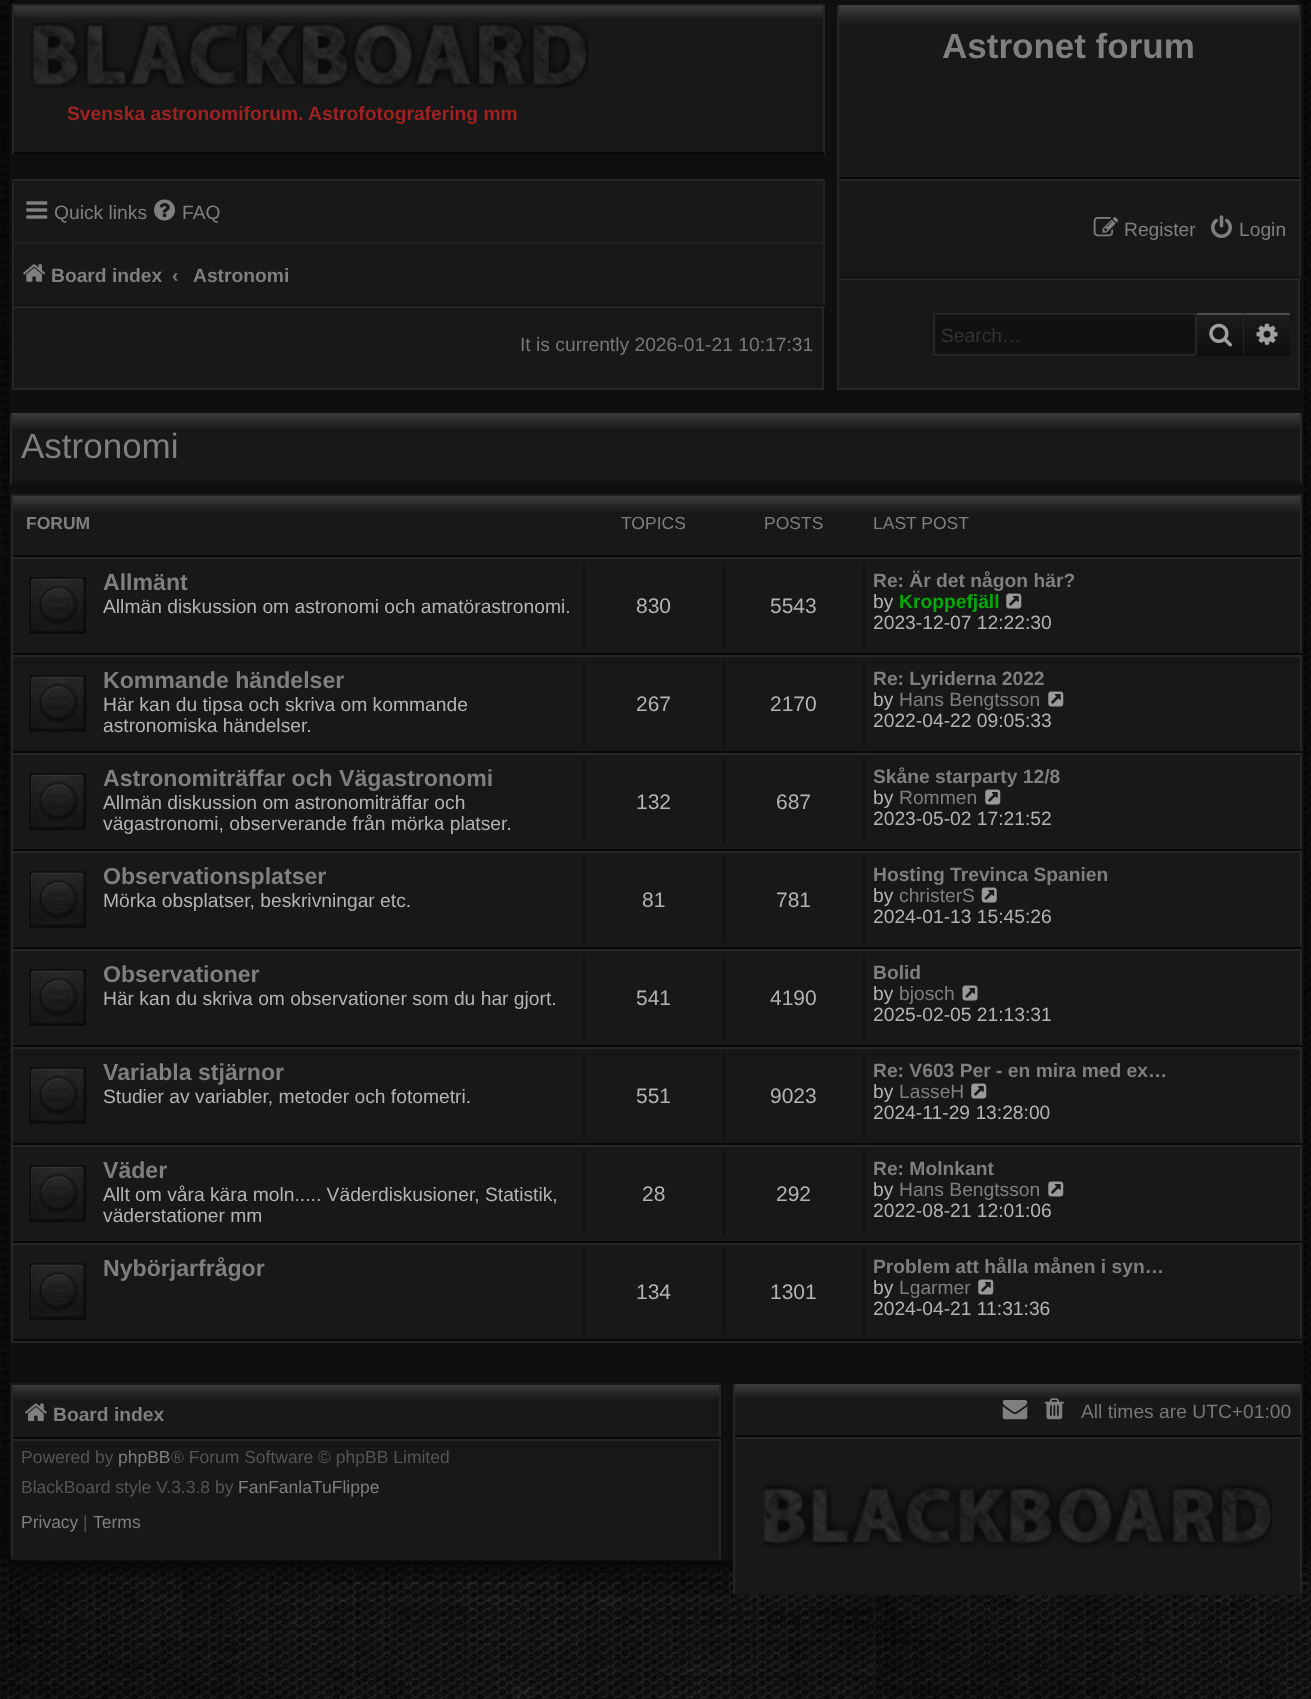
async function draw(canvas) {
  canvas.width = 1311
  canvas.height = 1699
  const ctx = canvas.getContext('2d')
  ctx.miterLimit = 4
  ctx.fontKerning = 'normal'
  async function loadImage(src) {
    const img = new Image()
    img.src = src
    await img.decode()
    return img
  }
  let gradient

  ctx.fillStyle = '#fff'
  ctx.fillRect(0, 0, 1311, 1699)
  ctx.drawImage(await loadImage('image0.png'), 0, 1561, 1311, 138)
  ctx.drawImage(await loadImage('image1.png'), 0, 0, 1311, 1561)
  ctx.fillStyle = '#050505e6'
  ctx.filter = 'blur(8px)'
  ctx.beginPath()
  ctx.roundRect(0, -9, 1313, 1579, 18)
  ctx.fill()
  ctx.filter = 'none'
  ctx.fillStyle = '#0f0f0f'
  ctx.beginPath()
  ctx.roundRect(9, 0, 1295, 1561, 9)
  ctx.fill()
  gradient = ctx.createLinearGradient(1068, 7, 1068, 177)
  gradient.addColorStop(0, '#3d3d3d')
  gradient.addColorStop(0.1, '#181818')
  gradient.addColorStop(1, '#181818')
  ctx.fillStyle = gradient
  ctx.fillRect(839, 7, 460, 170)
  ctx.fillStyle = '#3d3d3d'
  ctx.fillRect(837, 5, 463, 2)
  ctx.fillStyle = '#262626'
  ctx.fillRect(1299, 5, 2, 174)
  ctx.fillStyle = '#090909'
  ctx.fillRect(837, 177, 463, 2)
  ctx.fillStyle = '#262626'
  ctx.fillRect(837, 5, 2, 174)
  ctx.font = 'bold 35px Liberation Sans'
  ctx.fillStyle = '#7f7f7f'
  ctx.fillText('Astronet forum', 942, 58)
  gradient = ctx.createLinearGradient(418, 5.2, 418, 152)
  gradient.addColorStop(0, '#3d3d3d')
  gradient.addColorStop(0.1, '#181818')
  gradient.addColorStop(1, '#181818')
  ctx.fillStyle = gradient
  ctx.fillRect(14, 6, 809, 146)
  ctx.fillStyle = '#262626'
  ctx.fillRect(12, 4, 812, 2)
  ctx.fillRect(823, 4, 2, 150)
  ctx.fillStyle = '#090909'
  ctx.fillRect(12, 152, 812, 2)
  ctx.fillStyle = '#262626'
  ctx.fillRect(12, 4, 2, 150)
  ctx.drawImage(await loadImage('image2.png'), 31, 23, 557, 65)
  ctx.font = 'bold 19.25px Liberation Sans'
  ctx.fillStyle = '#9e2222'
  ctx.fillText('Svenska astronomiforum. Astrofotografering mm', 67, 120)
  ctx.fillStyle = '#181818'
  ctx.fillRect(14, 181, 809, 124)
  ctx.fillStyle = '#262626'
  ctx.fillRect(12, 179, 812, 2)
  ctx.fillStyle = '#222'
  ctx.fillRect(823, 179, 2, 127)
  ctx.fillStyle = '#090909'
  ctx.fillRect(12, 305, 812, 1)
  ctx.fillStyle = '#222'
  ctx.fillRect(12, 179, 2, 127)
  ctx.drawImage(await loadImage('image3.png'), 26, 201, 22, 18)
  ctx.font = '19.25px Liberation Sans'
  ctx.fillStyle = '#7f7f7f'
  ctx.fillText('Quick links', 54, 219)
  ctx.drawImage(await loadImage('image4.png'), 154, 199, 21, 22)
  ctx.fillText('FAQ', 182, 219)
  ctx.fillStyle = '#212121'
  ctx.fillRect(14, 242, 809, 2)
  ctx.drawImage(await loadImage('image5.png'), 23, 264, 23, 18)
  ctx.font = 'bold 19.25px Liberation Sans'
  ctx.fillStyle = '#7f7f7f'
  ctx.fillText('Board index', 51, 282)
  ctx.fillStyle = '#777'
  ctx.fillText('‹', 172, 282)
  ctx.fillStyle = '#7f7f7f'
  ctx.fillText('Astronomi', 193, 282)
  ctx.fillStyle = '#181818'
  ctx.fillRect(839, 181, 460, 96)
  ctx.fillStyle = '#262626'
  ctx.fillRect(837, 179, 463, 2)
  ctx.fillRect(1299, 179, 2, 99)
  ctx.fillStyle = '#090909'
  ctx.fillRect(837, 277, 463, 1)
  ctx.fillStyle = '#262626'
  ctx.fillRect(837, 179, 2, 99)
  ctx.drawImage(await loadImage('image6.png'), 1093, 217, 26, 20)
  ctx.font = '19.25px Liberation Sans'
  ctx.fillStyle = '#7f7f7f'
  ctx.fillText('Register', 1124, 236)
  ctx.drawImage(await loadImage('image7.png'), 1211, 215, 21, 23)
  ctx.fillText('Login', 1239, 236)
  ctx.fillStyle = '#181818'
  ctx.beginPath()
  ctx.rect(838, 279, 461, 110)
  ctx.fill()
  ctx.strokeStyle = '#262626'
  ctx.lineWidth = 2
  ctx.stroke()
  gradient = ctx.createLinearGradient(1220, 315, 1220, 354)
  gradient.addColorStop(0, '#1c1c1c')
  gradient.addColorStop(1, '#0f0f0f')
  ctx.fillStyle = gradient
  ctx.fillRect(1197, 315, 46, 39)
  ctx.fillStyle = '#4d4d4d'
  ctx.fillRect(1195, 313, 95, 2)
  ctx.fillStyle = '#262626'
  ctx.fillRect(1243, 313, 1, 42)
  ctx.fillStyle = '#111'
  ctx.fillRect(1195, 354, 95, 2)
  ctx.fillStyle = '#262626'
  ctx.fillRect(1195, 313, 2, 42)
  ctx.drawImage(await loadImage('image8.png'), 1209, 323, 23, 24)
  ctx.fillStyle = '#111'
  ctx.fillRect(935, 315, 260, 39)
  ctx.fillStyle = '#262626'
  ctx.fillRect(933, 313, 262, 2)
  ctx.fillRect(933, 354, 262, 2)
  ctx.fillRect(933, 313, 2, 42)
  ctx.fillStyle = '#333'
  ctx.fillText('Search…', 941, 342)
  gradient = ctx.createLinearGradient(1267, 315, 1267, 354)
  gradient.addColorStop(0, '#1c1c1c')
  gradient.addColorStop(1, '#0f0f0f')
  ctx.fillStyle = gradient
  ctx.fillRect(1244, 315, 46, 39)
  ctx.drawImage(await loadImage('image9.png'), 1256, 323, 22, 22)
  ctx.fillStyle = '#181818'
  ctx.beginPath()
  ctx.rect(13, 307, 810, 82)
  ctx.fill()
  ctx.stroke()
  ctx.fillStyle = '#777'
  ctx.fillText('It is currently 2026-01-21 10:17:31', 520, 351)
  gradient = ctx.createLinearGradient(656, 413, 656, 481)
  gradient.addColorStop(0, '#3d3d3d')
  gradient.addColorStop(0.25, '#181818')
  gradient.addColorStop(1, '#181818')
  ctx.fillStyle = gradient
  ctx.fillRect(12, 413, 1288, 68)
  ctx.fillStyle = '#262626'
  ctx.beginPath()
  ctx.moveTo(1302, 413)
  ctx.lineTo(1302, 485)
  ctx.lineTo(1300, 481)
  ctx.lineTo(1300, 413)
  ctx.closePath()
  ctx.fill()
  ctx.fillStyle = '#111'
  ctx.beginPath()
  ctx.moveTo(1302, 485)
  ctx.lineTo(10, 485)
  ctx.lineTo(12, 481)
  ctx.lineTo(1300, 481)
  ctx.closePath()
  ctx.fill()
  ctx.fillStyle = '#262626'
  ctx.beginPath()
  ctx.moveTo(10, 485)
  ctx.lineTo(10, 413)
  ctx.lineTo(12, 413)
  ctx.lineTo(12, 481)
  ctx.closePath()
  ctx.fill()
  ctx.font = '35px Liberation Sans'
  ctx.fillStyle = '#7f7f7f'
  ctx.fillText('Astronomi', 21, 458)
  gradient = ctx.createLinearGradient(656, 495, 656, 555)
  gradient.addColorStop(0, '#3d3d3d')
  gradient.addColorStop(0.3, '#181818')
  gradient.addColorStop(1, '#181818')
  ctx.fillStyle = gradient
  ctx.fillRect(13, 496, 1287, 59)
  ctx.fillStyle = '#222'
  ctx.fillRect(11, 494, 1291, 2)
  ctx.fillStyle = '#262626'
  ctx.fillRect(1300, 494, 2, 63)
  ctx.fillStyle = '#090909'
  ctx.fillRect(11, 555, 1291, 2)
  ctx.fillStyle = '#262626'
  ctx.fillRect(11, 494, 2, 63)
  ctx.font = 'bold 17.5px Liberation Sans'
  ctx.fillStyle = '#7f7f7f'
  ctx.fillText('FORUM', 26, 529)
  ctx.font = '17.5px Liberation Sans'
  ctx.fillText('TOPICS', 621, 529)
  ctx.fillText('POSTS', 764, 529)
  ctx.fillText('LAST POST', 873, 529)
  ctx.fillStyle = '#181818'
  ctx.fillRect(13, 559, 1287, 780)
  ctx.fillStyle = '#262626'
  ctx.fillRect(11, 557, 1291, 2)
  ctx.fillRect(1300, 557, 2, 98)
  ctx.fillStyle = '#090909'
  ctx.fillRect(11, 653, 1291, 2)
  ctx.fillStyle = '#262626'
  ctx.fillRect(11, 557, 2, 98)
  ctx.drawImage(await loadImage('image10.png'), 29, 577, 57, 57)
  ctx.font = 'bold 23.1px Liberation Sans'
  ctx.fillStyle = '#7f7f7f'
  ctx.fillText('Allmänt', 103, 590)
  ctx.font = '19.25px Liberation Sans'
  ctx.fillStyle = '#b3b3b3'
  ctx.fillText('Allmän diskussion om astronomi och amatörastronomi.', 103, 613)
  ctx.fillStyle = '#111'
  ctx.fillRect(583, 562, 2, 87)
  ctx.font = '21px Liberation Sans'
  ctx.fillStyle = '#b3b3b3'
  ctx.fillText('830', 636, 613)
  ctx.fillStyle = '#111'
  ctx.fillRect(723, 562, 2, 87)
  ctx.fillStyle = '#b3b3b3'
  ctx.fillText('5543', 770, 613)
  ctx.fillStyle = '#111'
  ctx.fillRect(863, 562, 2, 87)
  ctx.font = 'bold 19.25px Liberation Sans'
  ctx.fillStyle = '#7f7f7f'
  ctx.fillText('Re: Är det någon här?', 873, 587)
  ctx.font = '19.25px Liberation Sans'
  ctx.fillStyle = '#b3b3b3'
  ctx.fillText('by', 873, 608)
  ctx.font = 'bold 19.25px Liberation Sans'
  ctx.fillStyle = '#0a0'
  ctx.fillText('Kroppefjäll', 899, 608)
  ctx.drawImage(await loadImage('image11.png'), 1006, 593, 16, 16)
  ctx.font = '19.25px Liberation Sans'
  ctx.fillStyle = '#b3b3b3'
  ctx.fillText('2023-12-07 12:22:30', 873, 629)
  ctx.fillStyle = '#262626'
  ctx.fillRect(11, 655, 1291, 2)
  ctx.fillRect(1300, 655, 2, 98)
  ctx.fillStyle = '#090909'
  ctx.fillRect(11, 751, 1291, 2)
  ctx.fillStyle = '#262626'
  ctx.fillRect(11, 655, 2, 98)
  ctx.drawImage(await loadImage('image10.png'), 29, 675, 57, 57)
  ctx.font = 'bold 23.1px Liberation Sans'
  ctx.fillStyle = '#7f7f7f'
  ctx.fillText('Kommande händelser', 103, 688)
  ctx.font = '19.25px Liberation Sans'
  ctx.fillStyle = '#b3b3b3'
  ctx.fillText('Här kan du tipsa och skriva om kommande', 103, 711)
  ctx.fillText('astronomiska händelser.', 103, 732)
  ctx.fillStyle = '#111'
  ctx.fillRect(583, 660, 2, 87)
  ctx.font = '21px Liberation Sans'
  ctx.fillStyle = '#b3b3b3'
  ctx.fillText('267', 636, 711)
  ctx.fillStyle = '#111'
  ctx.fillRect(723, 660, 2, 87)
  ctx.fillStyle = '#b3b3b3'
  ctx.fillText('2170', 770, 711)
  ctx.fillStyle = '#111'
  ctx.fillRect(863, 660, 2, 87)
  ctx.font = 'bold 19.25px Liberation Sans'
  ctx.fillStyle = '#7f7f7f'
  ctx.fillText('Re: Lyriderna 2022', 873, 685)
  ctx.font = '19.25px Liberation Sans'
  ctx.fillStyle = '#b3b3b3'
  ctx.fillText('by', 873, 706)
  ctx.fillStyle = '#7f7f7f'
  ctx.fillText('Hans Bengtsson', 899, 706)
  ctx.drawImage(await loadImage('image12.png'), 1048, 691, 16, 16)
  ctx.fillStyle = '#b3b3b3'
  ctx.fillText('2022-04-22 09:05:33', 873, 727)
  ctx.fillStyle = '#262626'
  ctx.fillRect(11, 753, 1291, 2)
  ctx.fillRect(1300, 753, 2, 98)
  ctx.fillStyle = '#090909'
  ctx.fillRect(11, 849, 1291, 2)
  ctx.fillStyle = '#262626'
  ctx.fillRect(11, 753, 2, 98)
  ctx.drawImage(await loadImage('image10.png'), 29, 773, 57, 57)
  ctx.font = 'bold 23.1px Liberation Sans'
  ctx.fillStyle = '#7f7f7f'
  ctx.fillText('Astronomiträffar och Vägastronomi', 103, 786)
  ctx.font = '19.25px Liberation Sans'
  ctx.fillStyle = '#b3b3b3'
  ctx.fillText('Allmän diskussion om astronomiträffar och', 103, 809)
  ctx.fillText('vägastronomi, observerande från mörka platser.', 103, 830)
  ctx.fillStyle = '#111'
  ctx.fillRect(583, 758, 2, 87)
  ctx.font = '21px Liberation Sans'
  ctx.fillStyle = '#b3b3b3'
  ctx.fillText('132', 636, 809)
  ctx.fillStyle = '#111'
  ctx.fillRect(723, 758, 2, 87)
  ctx.fillStyle = '#b3b3b3'
  ctx.fillText('687', 776, 809)
  ctx.fillStyle = '#111'
  ctx.fillRect(863, 758, 2, 87)
  ctx.font = 'bold 19.25px Liberation Sans'
  ctx.fillStyle = '#7f7f7f'
  ctx.fillText('Skåne starparty 12/8', 873, 783)
  ctx.font = '19.25px Liberation Sans'
  ctx.fillStyle = '#b3b3b3'
  ctx.fillText('by', 873, 804)
  ctx.fillStyle = '#7f7f7f'
  ctx.fillText('Rommen', 899, 804)
  ctx.drawImage(await loadImage('image11.png'), 985, 789, 16, 16)
  ctx.fillStyle = '#b3b3b3'
  ctx.fillText('2023-05-02 17:21:52', 873, 825)
  ctx.fillStyle = '#262626'
  ctx.fillRect(11, 851, 1291, 2)
  ctx.fillRect(1300, 851, 2, 98)
  ctx.fillStyle = '#090909'
  ctx.fillRect(11, 947, 1291, 2)
  ctx.fillStyle = '#262626'
  ctx.fillRect(11, 851, 2, 98)
  ctx.drawImage(await loadImage('image10.png'), 29, 871, 57, 57)
  ctx.font = 'bold 23.1px Liberation Sans'
  ctx.fillStyle = '#7f7f7f'
  ctx.fillText('Observationsplatser', 103, 884)
  ctx.font = '19.25px Liberation Sans'
  ctx.fillStyle = '#b3b3b3'
  ctx.fillText('Mörka obsplatser, beskrivningar etc.', 103, 907)
  ctx.fillStyle = '#111'
  ctx.fillRect(583, 856, 2, 87)
  ctx.font = '21px Liberation Sans'
  ctx.fillStyle = '#b3b3b3'
  ctx.fillText('81', 642, 907)
  ctx.fillStyle = '#111'
  ctx.fillRect(723, 856, 2, 87)
  ctx.fillStyle = '#b3b3b3'
  ctx.fillText('781', 776, 907)
  ctx.fillStyle = '#111'
  ctx.fillRect(863, 856, 2, 87)
  ctx.font = 'bold 19.25px Liberation Sans'
  ctx.fillStyle = '#7f7f7f'
  ctx.fillText('Hosting Trevinca Spanien', 873, 881)
  ctx.font = '19.25px Liberation Sans'
  ctx.fillStyle = '#b3b3b3'
  ctx.fillText('by', 873, 902)
  ctx.fillStyle = '#7f7f7f'
  ctx.fillText('christerS', 899, 902)
  ctx.drawImage(await loadImage('image13.png'), 981, 887, 16, 16)
  ctx.fillStyle = '#b3b3b3'
  ctx.fillText('2024-01-13 15:45:26', 873, 923)
  ctx.fillStyle = '#262626'
  ctx.fillRect(11, 949, 1291, 2)
  ctx.fillRect(1300, 949, 2, 98)
  ctx.fillStyle = '#090909'
  ctx.fillRect(11, 1045, 1291, 2)
  ctx.fillStyle = '#262626'
  ctx.fillRect(11, 949, 2, 98)
  ctx.drawImage(await loadImage('image10.png'), 29, 969, 57, 57)
  ctx.font = 'bold 23.1px Liberation Sans'
  ctx.fillStyle = '#7f7f7f'
  ctx.fillText('Observationer', 103, 982)
  ctx.font = '19.25px Liberation Sans'
  ctx.fillStyle = '#b3b3b3'
  ctx.fillText('Här kan du skriva om observationer som du har gjort.', 103, 1005)
  ctx.fillStyle = '#111'
  ctx.fillRect(583, 954, 2, 87)
  ctx.font = '21px Liberation Sans'
  ctx.fillStyle = '#b3b3b3'
  ctx.fillText('541', 636, 1005)
  ctx.fillStyle = '#111'
  ctx.fillRect(723, 954, 2, 87)
  ctx.fillStyle = '#b3b3b3'
  ctx.fillText('4190', 770, 1005)
  ctx.fillStyle = '#111'
  ctx.fillRect(863, 954, 2, 87)
  ctx.font = 'bold 19.25px Liberation Sans'
  ctx.fillStyle = '#7f7f7f'
  ctx.fillText('Bolid', 873, 979)
  ctx.font = '19.25px Liberation Sans'
  ctx.fillStyle = '#b3b3b3'
  ctx.fillText('by', 873, 1000)
  ctx.fillStyle = '#7f7f7f'
  ctx.fillText('bjosch', 899, 1000)
  ctx.drawImage(await loadImage('image14.png'), 962, 985, 16, 16)
  ctx.fillStyle = '#b3b3b3'
  ctx.fillText('2025-02-05 21:13:31', 873, 1021)
  ctx.fillStyle = '#262626'
  ctx.fillRect(11, 1047, 1291, 2)
  ctx.fillRect(1300, 1047, 2, 98)
  ctx.fillStyle = '#090909'
  ctx.fillRect(11, 1143, 1291, 2)
  ctx.fillStyle = '#262626'
  ctx.fillRect(11, 1047, 2, 98)
  ctx.drawImage(await loadImage('image15.png'), 29, 1067, 57, 57)
  ctx.font = 'bold 23.1px Liberation Sans'
  ctx.fillStyle = '#7f7f7f'
  ctx.fillText('Variabla stjärnor', 103, 1080)
  ctx.font = '19.25px Liberation Sans'
  ctx.fillStyle = '#b3b3b3'
  ctx.fillText('Studier av variabler, metoder och fotometri.', 103, 1103)
  ctx.fillStyle = '#111'
  ctx.fillRect(583, 1052, 2, 87)
  ctx.font = '21px Liberation Sans'
  ctx.fillStyle = '#b3b3b3'
  ctx.fillText('551', 636, 1103)
  ctx.fillStyle = '#111'
  ctx.fillRect(723, 1052, 2, 87)
  ctx.fillStyle = '#b3b3b3'
  ctx.fillText('9023', 770, 1103)
  ctx.fillStyle = '#111'
  ctx.fillRect(863, 1052, 2, 87)
  ctx.font = 'bold 19.25px Liberation Sans'
  ctx.fillStyle = '#7f7f7f'
  ctx.fillText('Re: V603 Per - en mira med ex…', 873, 1077)
  ctx.font = '19.25px Liberation Sans'
  ctx.fillStyle = '#b3b3b3'
  ctx.fillText('by', 873, 1098)
  ctx.fillStyle = '#7f7f7f'
  ctx.fillText('LasseH', 899, 1098)
  ctx.drawImage(await loadImage('image11.png'), 971, 1083, 16, 16)
  ctx.fillStyle = '#b3b3b3'
  ctx.fillText('2024-11-29 13:28:00', 873, 1119)
  ctx.fillStyle = '#262626'
  ctx.fillRect(11, 1145, 1291, 2)
  ctx.fillRect(1300, 1145, 2, 98)
  ctx.fillStyle = '#090909'
  ctx.fillRect(11, 1241, 1291, 2)
  ctx.fillStyle = '#262626'
  ctx.fillRect(11, 1145, 2, 98)
  ctx.drawImage(await loadImage('image10.png'), 29, 1165, 57, 57)
  ctx.font = 'bold 23.1px Liberation Sans'
  ctx.fillStyle = '#7f7f7f'
  ctx.fillText('Väder', 103, 1178)
  ctx.font = '19.25px Liberation Sans'
  ctx.fillStyle = '#b3b3b3'
  ctx.fillText('Allt om våra kära moln..... Väderdiskusioner, Statistik,', 103, 1201)
  ctx.fillText('väderstationer mm', 103, 1222)
  ctx.fillStyle = '#111'
  ctx.fillRect(583, 1150, 2, 87)
  ctx.font = '21px Liberation Sans'
  ctx.fillStyle = '#b3b3b3'
  ctx.fillText('28', 642, 1201)
  ctx.fillStyle = '#111'
  ctx.fillRect(723, 1150, 2, 87)
  ctx.fillStyle = '#b3b3b3'
  ctx.fillText('292', 776, 1201)
  ctx.fillStyle = '#111'
  ctx.fillRect(863, 1150, 2, 87)
  ctx.font = 'bold 19.25px Liberation Sans'
  ctx.fillStyle = '#7f7f7f'
  ctx.fillText('Re: Molnkant', 873, 1175)
  ctx.font = '19.25px Liberation Sans'
  ctx.fillStyle = '#b3b3b3'
  ctx.fillText('by', 873, 1196)
  ctx.fillStyle = '#7f7f7f'
  ctx.fillText('Hans Bengtsson', 899, 1196)
  ctx.drawImage(await loadImage('image12.png'), 1048, 1181, 16, 16)
  ctx.fillStyle = '#b3b3b3'
  ctx.fillText('2022-08-21 12:01:06', 873, 1217)
  ctx.fillStyle = '#262626'
  ctx.fillRect(11, 1243, 1291, 2)
  ctx.fillRect(1300, 1243, 2, 98)
  ctx.fillStyle = '#090909'
  ctx.fillRect(11, 1339, 1291, 2)
  ctx.fillStyle = '#262626'
  ctx.fillRect(11, 1243, 2, 98)
  ctx.drawImage(await loadImage('image16.png'), 29, 1263, 57, 57)
  ctx.font = 'bold 23.1px Liberation Sans'
  ctx.fillStyle = '#7f7f7f'
  ctx.fillText('Nybörjarfrågor', 103, 1276)
  ctx.fillStyle = '#111'
  ctx.fillRect(583, 1248, 2, 87)
  ctx.font = '21px Liberation Sans'
  ctx.fillStyle = '#b3b3b3'
  ctx.fillText('134', 636, 1299)
  ctx.fillStyle = '#111'
  ctx.fillRect(723, 1248, 2, 87)
  ctx.fillStyle = '#b3b3b3'
  ctx.fillText('1301', 770, 1299)
  ctx.fillStyle = '#111'
  ctx.fillRect(863, 1248, 2, 87)
  ctx.font = 'bold 19.25px Liberation Sans'
  ctx.fillStyle = '#7f7f7f'
  ctx.fillText('Problem att hålla månen i syn…', 873, 1273)
  ctx.font = '19.25px Liberation Sans'
  ctx.fillStyle = '#b3b3b3'
  ctx.fillText('by', 873, 1294)
  ctx.fillStyle = '#7f7f7f'
  ctx.fillText('Lgarmer', 899, 1294)
  ctx.drawImage(await loadImage('image11.png'), 978, 1279, 16, 16)
  ctx.fillStyle = '#b3b3b3'
  ctx.fillText('2024-04-21 11:31:36', 873, 1315)
  ctx.fillStyle = '#232323'
  ctx.fillRect(11, 1341, 1291, 2)
  gradient = ctx.createLinearGradient(366, 1384, 366, 1437)
  gradient.addColorStop(0, '#3d3d3d')
  gradient.addColorStop(0.3, '#181818')
  gradient.addColorStop(1, '#181818')
  ctx.fillStyle = gradient
  ctx.fillRect(13, 1385, 706, 52)
  ctx.fillStyle = '#181818'
  ctx.fillRect(11, 1383, 710, 2)
  ctx.fillStyle = '#262626'
  ctx.fillRect(719, 1383, 2, 56)
  ctx.fillStyle = '#090909'
  ctx.fillRect(11, 1437, 710, 2)
  ctx.fillStyle = '#262626'
  ctx.fillRect(11, 1383, 2, 56)
  ctx.drawImage(await loadImage('image17.png'), 24, 1403, 23, 18)
  ctx.font = 'bold 19.25px Liberation Sans'
  ctx.fillStyle = '#7f7f7f'
  ctx.fillText('Board index', 53, 1421)
  ctx.fillStyle = '#181818'
  ctx.fillRect(13, 1441, 706, 117)
  ctx.fillStyle = '#262626'
  ctx.fillRect(11, 1439, 710, 2)
  ctx.fillRect(719, 1439, 2, 120)
  ctx.fillStyle = '#181818'
  ctx.fillRect(11, 1558, 710, 2)
  ctx.fillStyle = '#262626'
  ctx.fillRect(11, 1439, 2, 120)
  ctx.font = '17.5px Liberation Sans'
  ctx.fillStyle = '#555'
  ctx.fillText('Powered by', 21, 1463)
  ctx.fillStyle = '#7f7f7f'
  ctx.fillText('phpBB', 118, 1463)
  ctx.fillStyle = '#555'
  ctx.fillText('® Forum Software © phpBB Limited', 171, 1463)
  ctx.fillText('BlackBoard style V.3.3.8 by', 21, 1493)
  ctx.fillStyle = '#7f7f7f'
  ctx.fillText('FanFanlaTuFlippe', 238, 1493)
  ctx.fillText('Privacy', 21, 1528)
  ctx.fillStyle = '#555'
  ctx.fillText('|', 83, 1528)
  ctx.fillStyle = '#7f7f7f'
  ctx.fillText('Terms', 93, 1528)
  gradient = ctx.createLinearGradient(1018, 1384, 1018, 1435)
  gradient.addColorStop(0, '#3d3d3d')
  gradient.addColorStop(0.3, '#181818')
  gradient.addColorStop(1, '#181818')
  ctx.fillStyle = gradient
  ctx.fillRect(735, 1384, 565, 51)
  ctx.fillStyle = '#262626'
  ctx.fillRect(1300, 1384, 2, 53)
  ctx.fillStyle = '#090909'
  ctx.fillRect(733, 1435, 569, 2)
  ctx.fillStyle = '#262626'
  ctx.fillRect(733, 1384, 2, 53)
  ctx.drawImage(await loadImage('image18.png'), 1002, 1400, 26, 20)
  ctx.drawImage(await loadImage('image19.png'), 1044, 1398, 20, 22)
  ctx.font = '19.25px Liberation Sans'
  ctx.fillStyle = '#777'
  ctx.fillText('All times are UTC+01:00', 1081, 1418)
  ctx.fillStyle = '#181818'
  ctx.fillRect(735, 1439, 565, 154)
  ctx.fillStyle = '#262626'
  ctx.fillRect(733, 1437, 569, 2)
  ctx.fillRect(1300, 1437, 2, 157)
  ctx.fillStyle = '#181818'
  ctx.fillRect(733, 1593, 569, 2)
  ctx.fillStyle = '#262626'
  ctx.fillRect(733, 1437, 2, 157)
  ctx.drawImage(await loadImage('image20.png'), 763, 1484, 509, 64)
}

draw(document.querySelector('canvas'))
